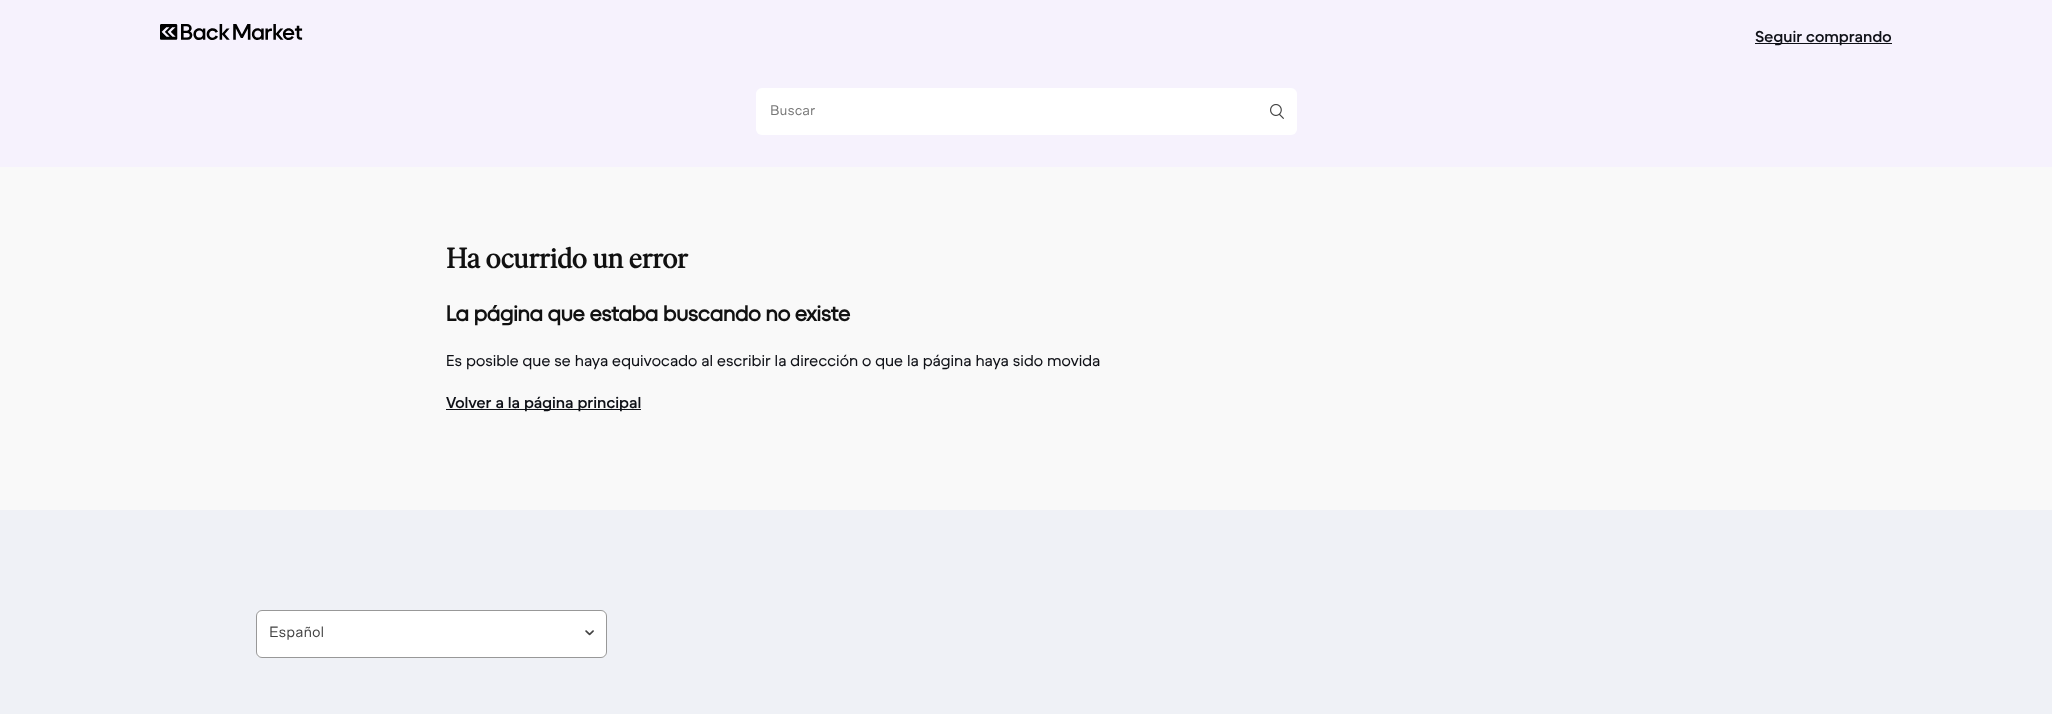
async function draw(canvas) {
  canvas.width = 2052
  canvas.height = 714
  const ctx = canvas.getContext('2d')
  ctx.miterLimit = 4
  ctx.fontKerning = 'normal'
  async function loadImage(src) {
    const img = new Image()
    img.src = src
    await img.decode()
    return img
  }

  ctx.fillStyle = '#f9f9f9'
  ctx.fillRect(0, 0, 2052, 714)
  ctx.fillStyle = '#f6f2fd'
  ctx.fillRect(0, 0, 2052, 167)
  ctx.drawImage(await loadImage('image0.png'), 160, 24, 143, 16)
  ctx.fillStyle = '#0f1117'
  ctx.fillRect(1755, 43, 137, 1)
  ctx.font = '600 16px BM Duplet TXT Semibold'
  ctx.fillText('Seguir comprando', 1755, 42)
  ctx.fillStyle = '#fff'
  ctx.beginPath()
  ctx.roundRect(756, 88, 541, 47, 6)
  ctx.fill()
  ctx.font = '14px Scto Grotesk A'
  ctx.fillStyle = '#757575'
  ctx.fillText('Buscar', 770, 115)
  ctx.drawImage(await loadImage('image1.png'), 1270, 104, 14, 15)
  ctx.font = 'bold 28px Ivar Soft'
  ctx.fillStyle = '#111'
  ctx.fillText('Ha ocurrido un error', 446, 268)
  ctx.font = 'bold 22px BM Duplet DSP'
  ctx.fillText('La página que estaba buscando no existe', 446, 321)
  ctx.font = '16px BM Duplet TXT'
  ctx.fillStyle = '#0f1117'
  ctx.fillText('Es posible que se haya equivocado al escribir la dirección o que la página haya sido movida', 446, 366)
  ctx.fillRect(446, 409, 195, 1)
  ctx.font = '600 16px BM Duplet TXT Semibold'
  ctx.fillText('Volver a la página principal', 446, 408)
  ctx.fillStyle = '#eff1f6'
  ctx.fillRect(0, 510, 2052, 204)
  ctx.fillStyle = '#fff'
  ctx.beginPath()
  ctx.roundRect(256, 610, 351, 48, 6)
  ctx.fill()
  ctx.beginPath()
  ctx.roundRect(256.5, 610.5, 350, 47, 5.5)
  ctx.strokeStyle = '#1111116e'
  ctx.stroke()
  ctx.font = '15px Scto Grotesk A'
  ctx.fillStyle = '#424242'
  ctx.fillText('Español', 269, 637)
  ctx.drawImage(await loadImage('image2.png'), 585, 630, 9, 6)
}

draw(document.querySelector('canvas'))
